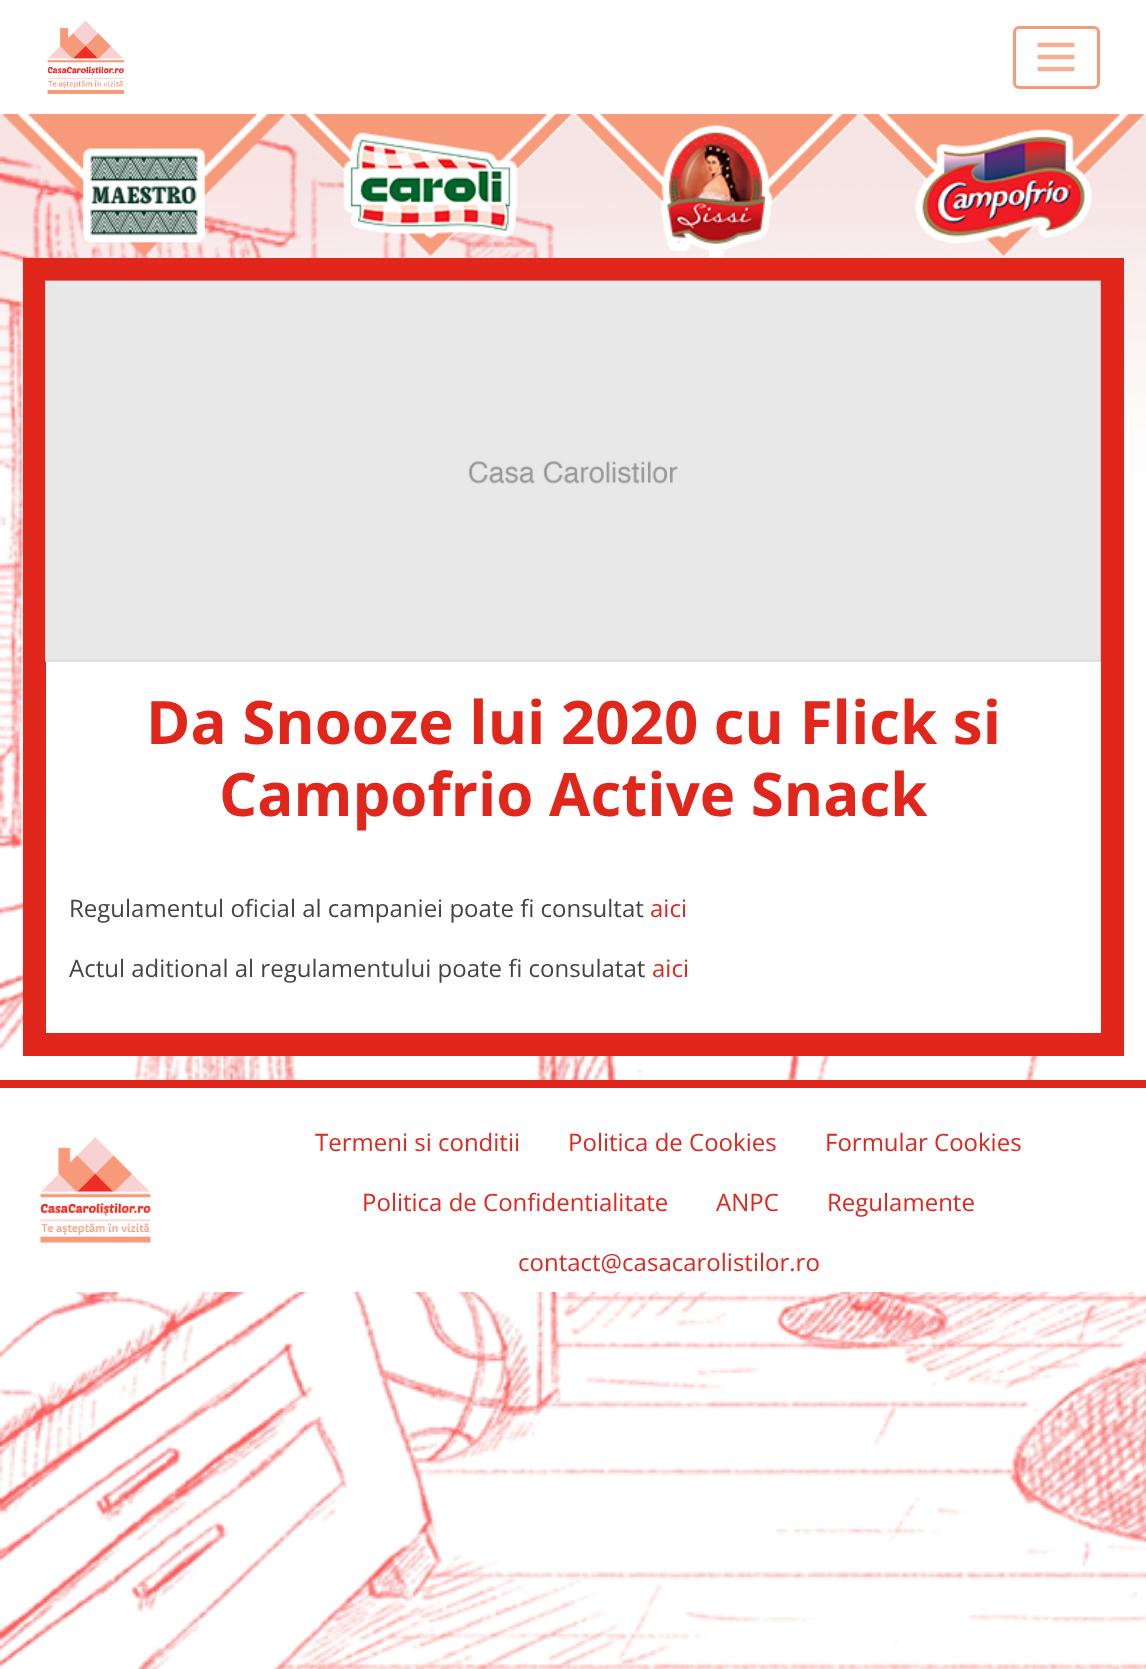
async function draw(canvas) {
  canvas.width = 1146
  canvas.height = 1669
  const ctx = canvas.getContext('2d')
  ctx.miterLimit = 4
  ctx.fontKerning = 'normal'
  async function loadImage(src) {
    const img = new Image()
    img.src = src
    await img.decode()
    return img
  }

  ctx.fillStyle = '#fff'
  ctx.fillRect(0, 0, 1146, 1669)
  ctx.drawImage(await loadImage('image0.png'), 0, 114, 1146, 1555)
  ctx.drawImage(await loadImage('image1.png'), 47, 20, 77, 74)
  ctx.beginPath()
  ctx.roundRect(1014.5, 27.5, 84, 60, 4.5)
  ctx.strokeStyle = '#f69a7a'
  ctx.lineWidth = 3
  ctx.stroke()
  ctx.beginPath()
  ctx.moveTo(1039.5, 45)
  ctx.lineTo(1072.5, 45)
  ctx.moveTo(1039.5, 57)
  ctx.lineTo(1072.5, 57)
  ctx.moveTo(1039.5, 69)
  ctx.lineTo(1072.5, 69)
  ctx.strokeStyle = '#f8ae95'
  ctx.lineWidth = 4.5
  ctx.lineCap = 'round'
  ctx.stroke()
  ctx.drawImage(await loadImage('image2.png'), 1, 114, 286, 143)
  ctx.drawImage(await loadImage('image3.png'), 287, 114, 286, 144)
  ctx.drawImage(await loadImage('image4.png'), 574, 114, 286, 144)
  ctx.drawImage(await loadImage('image5.png'), 860, 114, 286, 144)
  ctx.fillRect(46, 661, 998, 372)
  ctx.strokeStyle = '#e1261c'
  ctx.lineWidth = 23
  ctx.strokeRect(34.5, 269.5, 1078, 775)
  ctx.drawImage(await loadImage('image6.png'), 45, 280, 1056, 382)
  ctx.font = 'bold 60px Open Sans'
  ctx.fillStyle = '#e1261c'
  ctx.fillText('Da Snooze lui 2020 cu Flick si', 146, 744)
  ctx.fillText('Campofrio Active Snack', 219, 816)
  ctx.font = '24px Open Sans'
  ctx.fillStyle = '#444'
  ctx.fillText('Regulamentul oficial al campaniei poate fi consultat', 69, 917)
  ctx.fillStyle = '#e1261c'
  ctx.fillText('aici', 650, 917)
  ctx.fillStyle = '#444'
  ctx.fillText('Actul aditional al regulamentului poate fi consulatat', 69, 977)
  ctx.fillStyle = '#e1261c'
  ctx.fillText('aici', 652, 977)
  ctx.fillStyle = '#fff'
  ctx.fillRect(0, 1088, 1146, 204)
  ctx.fillStyle = '#e1261c'
  ctx.fillRect(0, 1080, 1146, 8)
  ctx.drawImage(await loadImage('image7.png'), 40, 1136, 111, 107)
  ctx.fillText('Termeni si conditii', 315, 1151)
  ctx.fillText('Politica de Cookies', 568, 1151)
  ctx.fillText('Formular Cookies', 825, 1151)
  ctx.fillText('Politica de Confidentialitate', 362, 1211)
  ctx.fillText('ANPC', 716, 1211)
  ctx.fillText('Regulamente', 827, 1211)
  ctx.fillText('contact@casacarolistilor.ro', 518, 1271)
}

draw(document.querySelector('canvas'))
